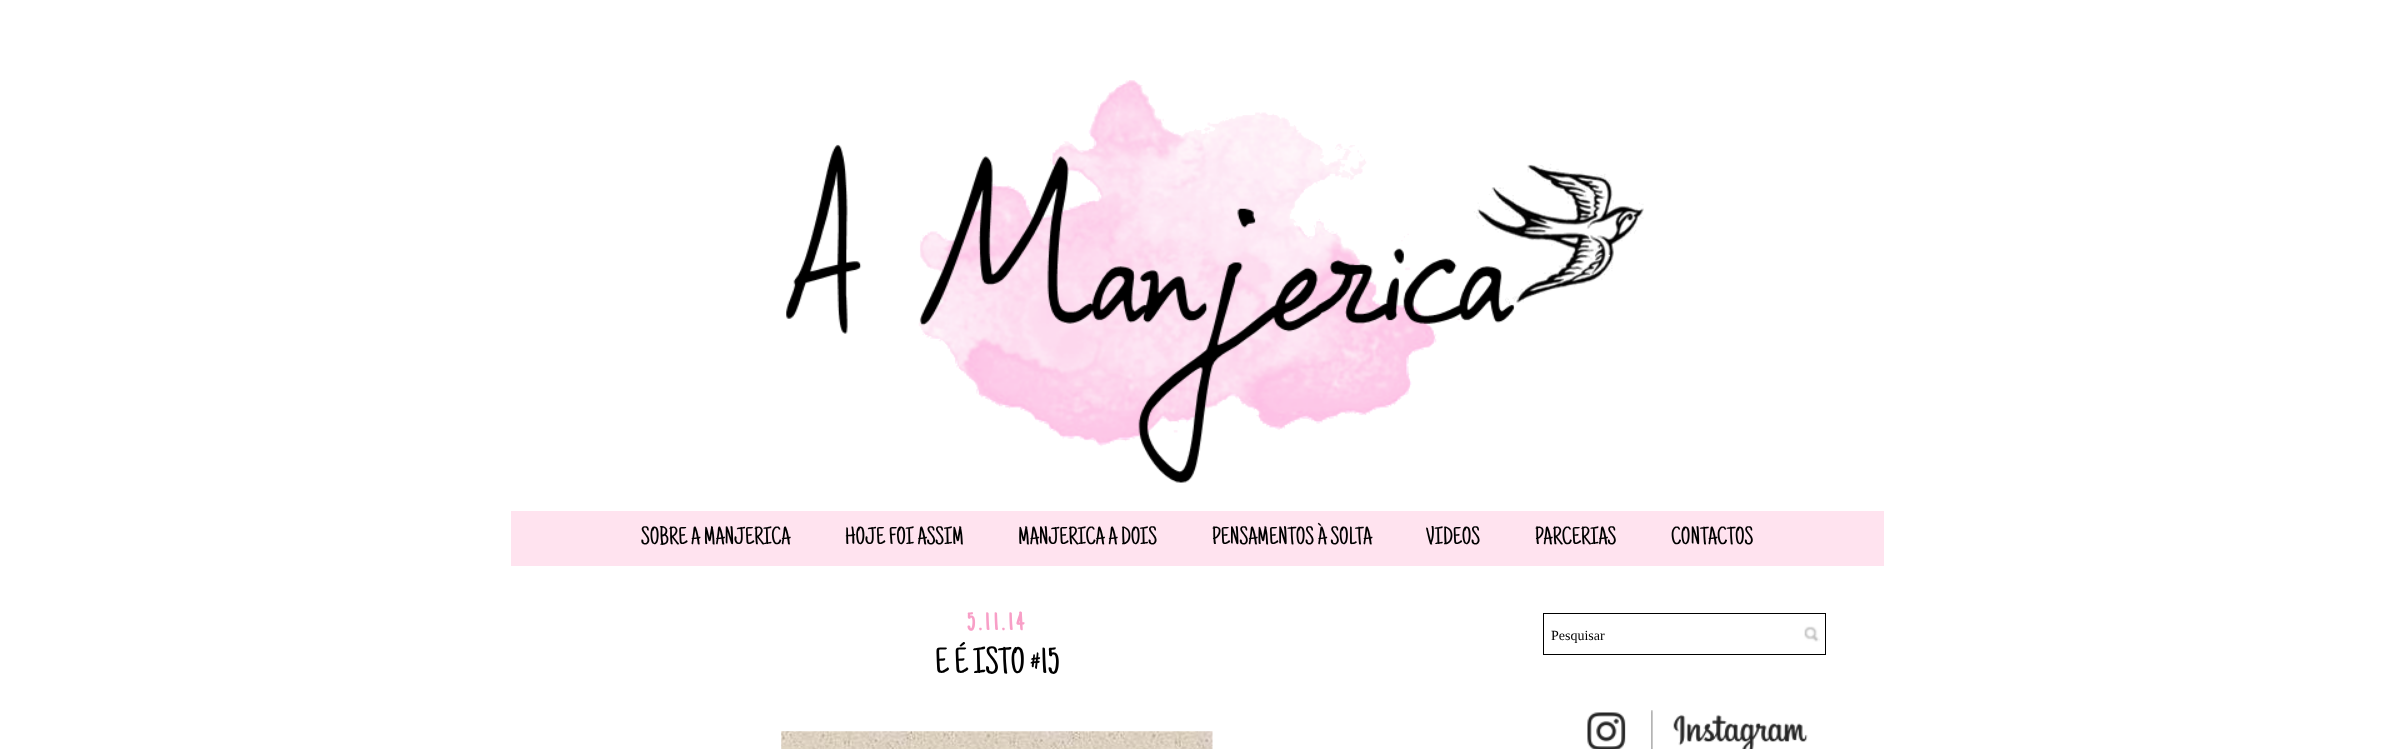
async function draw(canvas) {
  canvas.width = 2393
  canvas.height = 749
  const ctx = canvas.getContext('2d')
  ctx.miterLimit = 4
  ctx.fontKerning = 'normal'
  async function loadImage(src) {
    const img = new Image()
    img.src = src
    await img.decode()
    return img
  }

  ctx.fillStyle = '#fff'
  ctx.fillRect(0, 0, 2393, 749)
  ctx.drawImage(await loadImage('image0.png'), 786, 80, 858, 403)
  ctx.fillStyle = '#ffe3ef'
  ctx.fillRect(511, 511, 1373, 55)
  ctx.font = '25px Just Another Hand'
  ctx.fillStyle = '#000'
  ctx.fillText('SOBRE A MANJERICA', 641, 544)
  ctx.fillText('HOJE FOI ASSIM', 845, 544)
  ctx.fillText('MANJERICA A DOIS', 1018, 544)
  ctx.fillText('PENSAMENTOS À SOLTA', 1212, 544)
  ctx.fillText('VIDEOS', 1426, 544)
  ctx.fillText('PARCERIAS', 1535, 544)
  ctx.fillText('CONTACTOS', 1671, 544)
  ctx.letterSpacing = '3.75px'
  ctx.font = 'bold 25px Just Another Hand'
  ctx.fillStyle = '#f89fc7'
  ctx.fillText('5.11.14', 967, 630)
  ctx.letterSpacing = '0px'
  ctx.font = '37.5px Just Another Hand'
  ctx.fillStyle = '#000'
  ctx.fillText('E É ISTO #15', 935, 673)
  ctx.drawImage(await loadImage('image1.png'), 781, 731, 432, 18)
  ctx.drawImage(await loadImage('image2.png'), 1804, 626, 16, 16)
  ctx.strokeStyle = '#000'
  ctx.strokeRect(1543.5, 613.5, 282, 41)
  ctx.font = '14px Liberation Serif'
  ctx.fillText('Pesquisar', 1551, 640)
  ctx.drawImage(await loadImage('image3.png'), 1587, 710, 221, 39)
}

draw(document.querySelector('canvas'))
